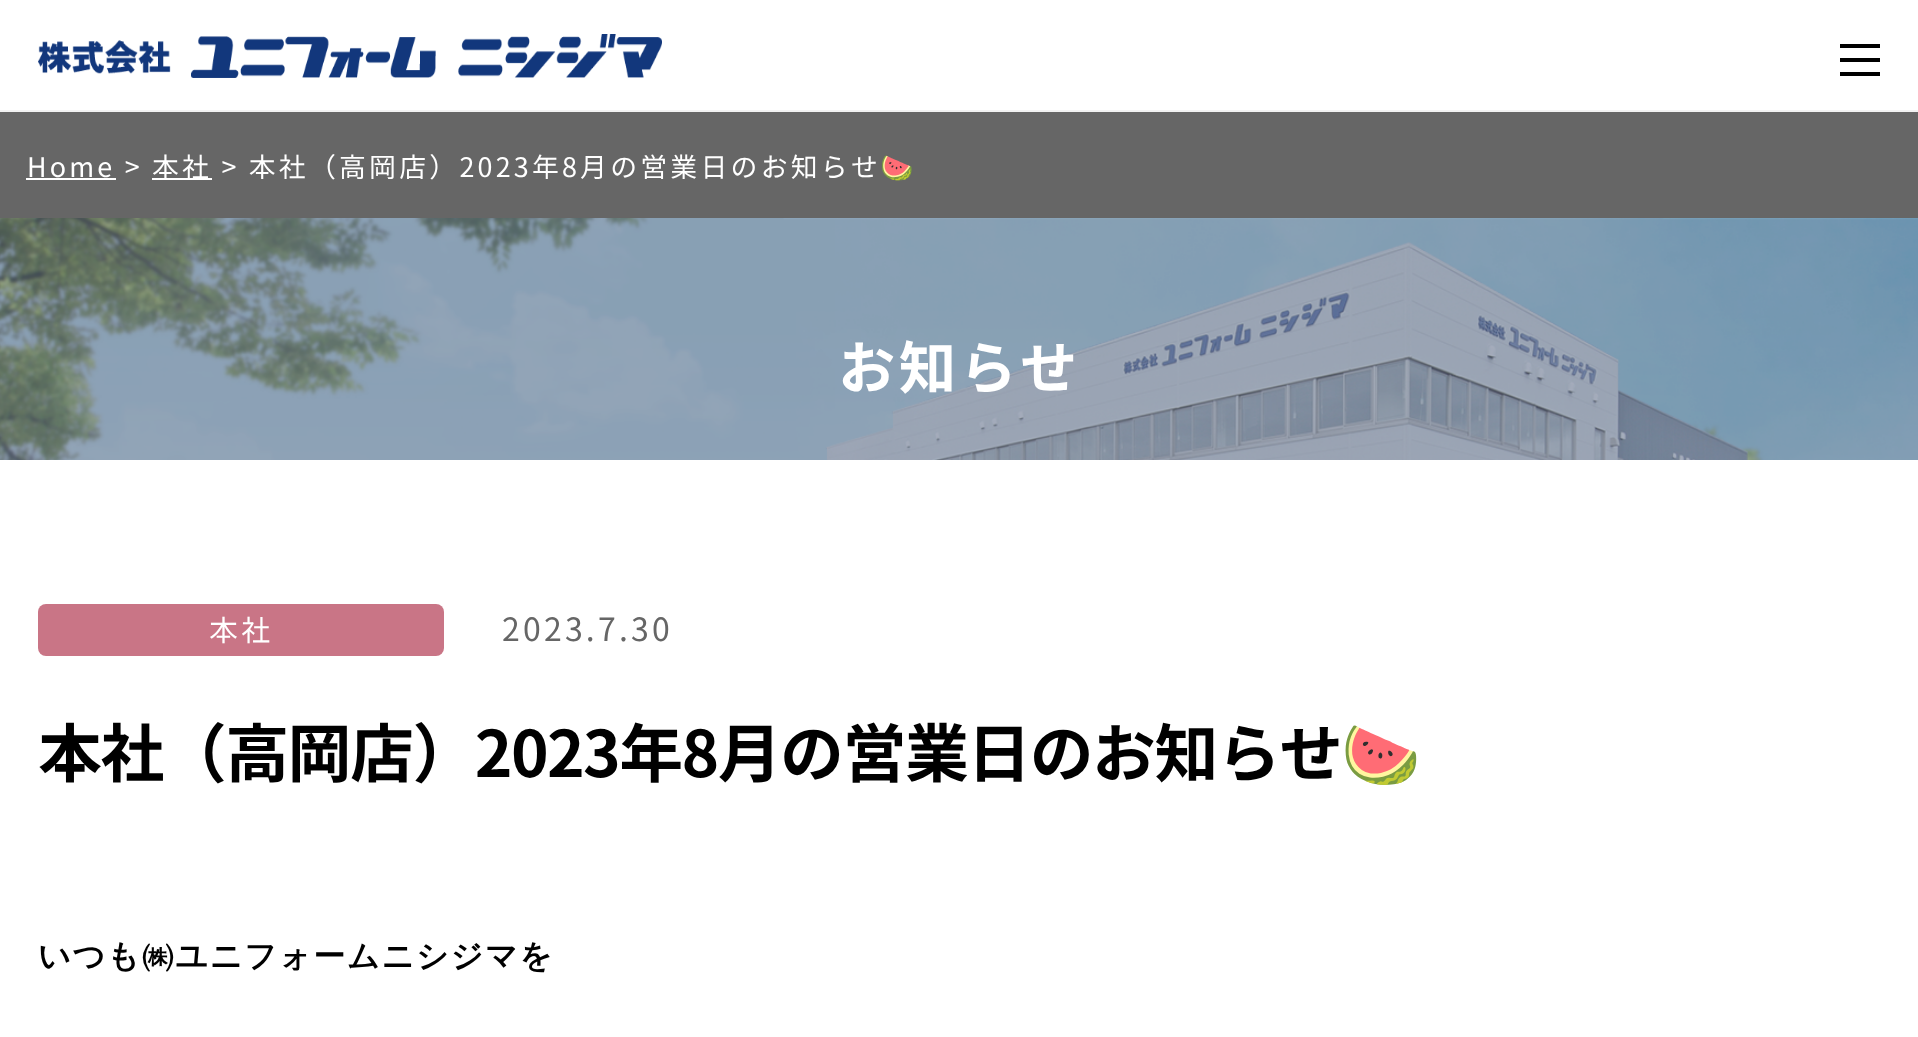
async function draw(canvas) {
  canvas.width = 1918
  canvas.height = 1037
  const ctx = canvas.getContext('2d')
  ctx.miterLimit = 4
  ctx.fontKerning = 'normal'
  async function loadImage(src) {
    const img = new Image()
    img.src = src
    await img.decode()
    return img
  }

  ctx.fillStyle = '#fff'
  ctx.fillRect(0, 0, 1918, 1037)
  ctx.fillStyle = '#f2f2f2'
  ctx.fillRect(0, 110, 1918, 2)
  ctx.drawImage(await loadImage('image0.png'), 38, 34, 624, 44)
  ctx.fillStyle = '#000'
  ctx.fillRect(1840, 72, 40, 4)
  ctx.fillRect(1840, 44, 40, 4)
  ctx.fillRect(1840, 58, 40, 4)
  ctx.fillStyle = '#666'
  ctx.fillRect(0, 112, 1918, 106)
  ctx.letterSpacing = '3.2px'
  ctx.font = '26.9px Noto Sans JP'
  ctx.fillStyle = '#fff'
  ctx.fillText('Home >', 27, 177)
  ctx.fillRect(26, 178, 90, 2)
  ctx.fillRect(152, 178, 60, 2)
  ctx.fillText('本社 > 本社（高岡店）2023年8月の営業日のお知らせ', 152, 177)
  ctx.font = '26.9px Noto Color Emoji'
  ctx.fillText('🍉', 880, 177)
  ctx.drawImage(await loadImage('image1.png'), 0, 218, 1918, 242)
  ctx.font = 'bold 57.5px Noto Sans JP'
  ctx.fillText('お知らせ', 838, 389)
  ctx.fillStyle = '#c97586'
  ctx.beginPath()
  ctx.roundRect(38, 604, 406, 52, 8)
  ctx.fill()
  ctx.font = '29px Noto Sans JP'
  ctx.fillStyle = '#fff'
  ctx.fillText('本社', 209, 641)
  ctx.font = '32px Noto Sans JP'
  ctx.fillStyle = '#666'
  ctx.fillText('2023.7.30', 502, 641)
  ctx.letterSpacing = '-1.6px'
  ctx.font = 'bold 64px Noto Sans JP'
  ctx.fillStyle = '#000'
  ctx.fillText('本社（高岡店）2023年8月の営業日のお知らせ', 38, 777)
  ctx.font = 'bold 64px Noto Color Emoji'
  ctx.fillText('🍉', 1341, 777)
  ctx.letterSpacing = '1.75px'
  ctx.font = 'bold 32px WenQuanYi Zen Hei'
  ctx.fillText('いつも㈱ユニフォームニシジマを', 38, 967)
}

draw(document.querySelector('canvas'))
